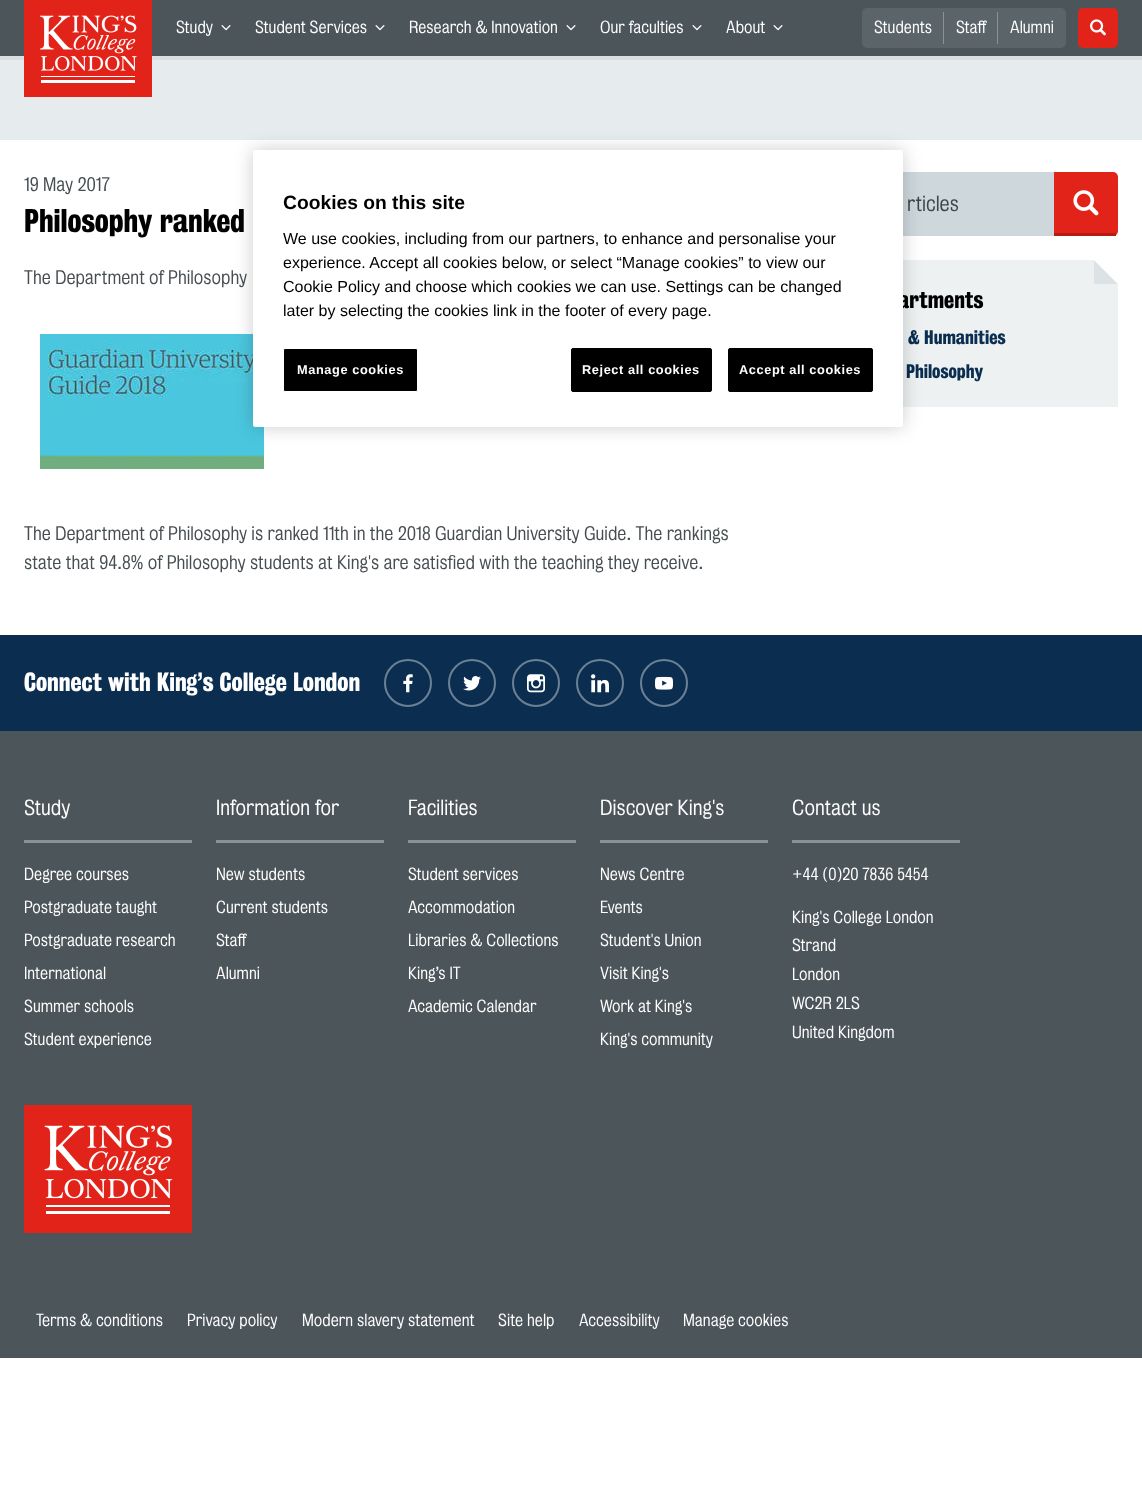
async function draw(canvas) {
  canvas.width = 1142
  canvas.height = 1498
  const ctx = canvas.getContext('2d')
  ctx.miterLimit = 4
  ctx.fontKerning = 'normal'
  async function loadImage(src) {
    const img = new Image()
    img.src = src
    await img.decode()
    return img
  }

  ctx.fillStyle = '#fff'
  ctx.fillRect(0, 0, 1142, 1498)
  ctx.fillStyle = '#4c555a'
  ctx.fillRect(0, 0, 1142, 56)
  ctx.fillStyle = '#dbdfe1'
  ctx.fillRect(0, 56, 1142, 4)
  ctx.fillStyle = '#e6ebed'
  ctx.fillRect(0, 60, 1142, 80)
  ctx.drawImage(await loadImage('image0.png'), 24, 0, 128, 97)
  ctx.font = '300 16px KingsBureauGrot'
  ctx.fillStyle = '#fff'
  ctx.fillText('Study', 176, 33)
  ctx.drawImage(await loadImage('image1.png'), 221, 25, 10, 6)
  ctx.fillText('Student Services', 255, 33)
  ctx.drawImage(await loadImage('image1.png'), 375, 25, 10, 6)
  ctx.fillText('Research & Innovation', 409, 33)
  ctx.drawImage(await loadImage('image1.png'), 566, 25, 10, 6)
  ctx.fillText('Our faculties', 600, 33)
  ctx.drawImage(await loadImage('image1.png'), 692, 25, 10, 6)
  ctx.fillText('About', 726, 33)
  ctx.drawImage(await loadImage('image1.png'), 773, 25, 10, 6)
  ctx.fillStyle = '#5b6469'
  ctx.beginPath()
  ctx.roundRect(862, 8, 204, 40, 5)
  ctx.fill()
  ctx.fillStyle = '#fff'
  ctx.fillText('Students', 874, 33)
  ctx.fillStyle = '#8c9396'
  ctx.fillRect(943, 12, 1, 32)
  ctx.fillStyle = '#fff'
  ctx.fillText('Staff', 956, 33)
  ctx.fillStyle = '#8c9396'
  ctx.fillRect(997, 12, 1, 32)
  ctx.fillStyle = '#fff'
  ctx.fillText('Alumni', 1010, 33)
  ctx.fillStyle = '#e22319'
  ctx.beginPath()
  ctx.roundRect(1078, 8, 40, 40, 5)
  ctx.fill()
  ctx.drawImage(await loadImage('image2.png'), 1090, 19, 16, 17)
  ctx.font = '300 18px KingsBureauGrot'
  ctx.fillStyle = '#464e52'
  ctx.fillText('19 May 2017', 24, 191)
  ctx.font = 'bold 30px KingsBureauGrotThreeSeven'
  ctx.fillStyle = '#000'
  ctx.fillText('Philosophy ranked', 24, 232)
  ctx.font = '300 18px KingsBureauGrot'
  ctx.fillStyle = '#464e52'
  ctx.fillText('The Department of Philosophy', 24, 284)
  ctx.drawImage(await loadImage('image3.png'), 40, 334, 224, 135)
  ctx.fillText('The Department of Philosophy is ranked 11th in the 2018 Guardian University Guide. The rankings', 24, 540)
  ctx.fillText('state that 94.8% of Philosophy students at King\'s are satisfied with the teaching they receive.', 24, 569)
  ctx.fillStyle = '#cdd7dc'
  ctx.fillRect(903, 173, 150, 62)
  ctx.strokeStyle = '#cdd7dc'
  ctx.strokeRect(769.5, 172.5, 284, 63)
  ctx.font = '300 20px KingsBureauGrot'
  ctx.fillStyle = '#3e4649'
  ctx.fillText('rticles', 907, 211)
  ctx.fillStyle = '#e22319'
  ctx.beginPath()
  ctx.roundRect(1054, 172, 64, 64, [0, 5, 5, 0])
  ctx.fill()
  ctx.fillStyle = '#b61c14'
  ctx.fillRect(1054, 233, 62, 3)
  ctx.drawImage(await loadImage('image4.png'), 1073, 190, 26, 26)
  ctx.fillStyle = '#edf1f2'
  ctx.fillRect(903, 260, 215, 147)
  ctx.fillStyle = '#dce3e6'
  ctx.beginPath()
  ctx.moveTo(1118, 284)
  ctx.lineTo(1094, 284)
  ctx.lineTo(1094, 260)
  ctx.closePath()
  ctx.fill()
  ctx.fillStyle = '#fff'
  ctx.beginPath()
  ctx.moveTo(1094, 260)
  ctx.lineTo(1118, 260)
  ctx.lineTo(1118, 284)
  ctx.closePath()
  ctx.fill()
  ctx.font = 'bold 22px KingsBureauGrotThreeSeven'
  ctx.fillStyle = '#000'
  ctx.fillText('artments', 898, 308)
  ctx.font = 'bold 18px KingsBureauGrotThreeSeven'
  ctx.fillStyle = '#0a2d50'
  ctx.fillText('& Humanities', 908, 344)
  ctx.fillText('Philosophy', 906, 378)
  ctx.fillRect(0, 635, 1142, 96)
  ctx.font = 'bold 24px KingsBureauGrotThreeSeven'
  ctx.fillStyle = '#fff'
  ctx.fillText('Connect with King’s College London', 24, 691)
  ctx.beginPath()
  ctx.arc(408, 683, 23, 0, 2 * Math.PI)
  ctx.strokeStyle = '#6c8196'
  ctx.lineWidth = 2
  ctx.stroke()
  ctx.drawImage(await loadImage('image5.png'), 403, 674, 10, 19)
  ctx.beginPath()
  ctx.arc(472, 683, 23, 0, 2 * Math.PI)
  ctx.stroke()
  ctx.drawImage(await loadImage('image6.png'), 463, 676, 18, 15)
  ctx.beginPath()
  ctx.arc(536, 683, 23, 0, 2 * Math.PI)
  ctx.stroke()
  ctx.drawImage(await loadImage('image7.png'), 527, 674, 18, 19)
  ctx.beginPath()
  ctx.arc(600, 683, 23, 0, 2 * Math.PI)
  ctx.stroke()
  ctx.drawImage(await loadImage('image8.png'), 591, 674, 18, 19)
  ctx.beginPath()
  ctx.arc(664, 683, 23, 0, 2 * Math.PI)
  ctx.stroke()
  ctx.drawImage(await loadImage('image9.png'), 655, 676, 18, 14)
  ctx.fillStyle = '#4c555a'
  ctx.fillRect(0, 731, 1142, 627)
  ctx.fillStyle = '#8b9296'
  ctx.fillRect(24, 840, 168, 3)
  ctx.font = '300 20px KingsBureauGrot'
  ctx.fillStyle = '#fff'
  ctx.fillText('Study', 24, 815)
  ctx.font = '300 16px KingsBureauGrot'
  ctx.fillText('Degree courses', 24, 880)
  ctx.fillText('Postgraduate taught', 24, 913)
  ctx.fillText('Postgraduate research', 24, 946)
  ctx.fillText('International', 24, 979)
  ctx.fillText('Summer schools', 24, 1012)
  ctx.fillText('Student experience', 24, 1045)
  ctx.fillStyle = '#8b9296'
  ctx.fillRect(216, 840, 168, 3)
  ctx.font = '300 20px KingsBureauGrot'
  ctx.fillStyle = '#fff'
  ctx.fillText('Information for', 216, 815)
  ctx.font = '300 16px KingsBureauGrot'
  ctx.fillText('New students', 216, 880)
  ctx.fillText('Current students', 216, 913)
  ctx.fillText('Staff', 216, 946)
  ctx.fillText('Alumni', 216, 979)
  ctx.fillStyle = '#8b9296'
  ctx.fillRect(408, 840, 168, 3)
  ctx.font = '300 20px KingsBureauGrot'
  ctx.fillStyle = '#fff'
  ctx.fillText('Facilities', 408, 815)
  ctx.font = '300 16px KingsBureauGrot'
  ctx.fillText('Student services', 408, 880)
  ctx.fillText('Accommodation', 408, 913)
  ctx.fillText('Libraries & Collections', 408, 946)
  ctx.fillText('King’s IT', 408, 979)
  ctx.fillText('Academic Calendar', 408, 1012)
  ctx.fillStyle = '#8b9296'
  ctx.fillRect(600, 840, 168, 3)
  ctx.font = '300 20px KingsBureauGrot'
  ctx.fillStyle = '#fff'
  ctx.fillText('Discover King\'s', 600, 815)
  ctx.font = '300 16px KingsBureauGrot'
  ctx.fillText('News Centre', 600, 880)
  ctx.fillText('Events', 600, 913)
  ctx.fillText('Student\'s Union', 600, 946)
  ctx.fillText('Visit King\'s', 600, 979)
  ctx.fillText('Work at King\'s', 600, 1012)
  ctx.fillText('King\'s community', 600, 1045)
  ctx.fillStyle = '#8b9296'
  ctx.fillRect(792, 840, 168, 3)
  ctx.font = '300 20px KingsBureauGrot'
  ctx.fillStyle = '#fff'
  ctx.fillText('Contact us', 792, 815)
  ctx.font = '300 16px KingsBureauGrot'
  ctx.fillText('+44 (0)20 7836 5454', 792, 880)
  ctx.fillText('King\'s College London', 792, 923)
  ctx.fillText('Strand', 792, 951)
  ctx.fillText('London', 792, 980)
  ctx.fillText('WC2R 2LS', 792, 1009)
  ctx.fillText('United Kingdom', 792, 1038)
  ctx.drawImage(await loadImage('image10.png'), 24, 1105, 168, 128)
  ctx.fillText('Terms & conditions', 36, 1326)
  ctx.fillText('Privacy policy', 187, 1326)
  ctx.fillText('Modern slavery statement', 302, 1326)
  ctx.fillText('Site help', 498, 1326)
  ctx.fillText('Accessibility', 579, 1326)
  ctx.fillText('Manage cookies', 683, 1326)
  ctx.fillStyle = '#00000033'
  ctx.filter = 'blur(9px)'
  ctx.beginPath()
  ctx.roundRect(253, 150, 650, 277, 2.5)
  ctx.fill()
  ctx.filter = 'none'
  ctx.fillStyle = '#fff'
  ctx.beginPath()
  ctx.roundRect(253, 150, 650, 277, 2.5)
  ctx.fill()
  ctx.font = 'bold 19.25px Liberation Sans'
  ctx.fillStyle = '#000'
  ctx.fillText('Cookies on this site', 283, 209)
  ctx.font = '16px Liberation Sans'
  ctx.fillText('We use cookies, including from our partners, to enhance and personalise your', 283, 244)
  ctx.fillText('experience. Accept all cookies below, or select “Manage cookies” to view our', 283, 268)
  ctx.fillText('Cookie Policy and choose which cookies we can use. Settings can be changed', 283, 292)
  ctx.fillText('later by selecting the cookies link in the footer of every page.', 283, 316)
  ctx.beginPath()
  ctx.roundRect(283.5, 348.5, 134, 43, 1.5)
  ctx.fill()
  ctx.strokeStyle = '#fff'
  ctx.lineWidth = 1
  ctx.stroke()
  ctx.letterSpacing = '0.6px'
  ctx.font = 'bold 12.75px Liberation Sans'
  ctx.fillStyle = '#fff'
  ctx.fillText('Manage cookies', 297, 374)
  ctx.fillStyle = '#000'
  ctx.beginPath()
  ctx.roundRect(571.5, 348.5, 140, 43, 1.5)
  ctx.fill()
  ctx.strokeStyle = '#000'
  ctx.stroke()
  ctx.fillStyle = '#fff'
  ctx.fillText('Reject all cookies', 582, 374)
  ctx.fillStyle = '#000'
  ctx.beginPath()
  ctx.roundRect(728.5, 348.5, 144, 43, 1.5)
  ctx.fill()
  ctx.stroke()
  ctx.fillStyle = '#fff'
  ctx.fillText('Accept all cookies', 739, 374)
}

draw(document.querySelector('canvas'))
